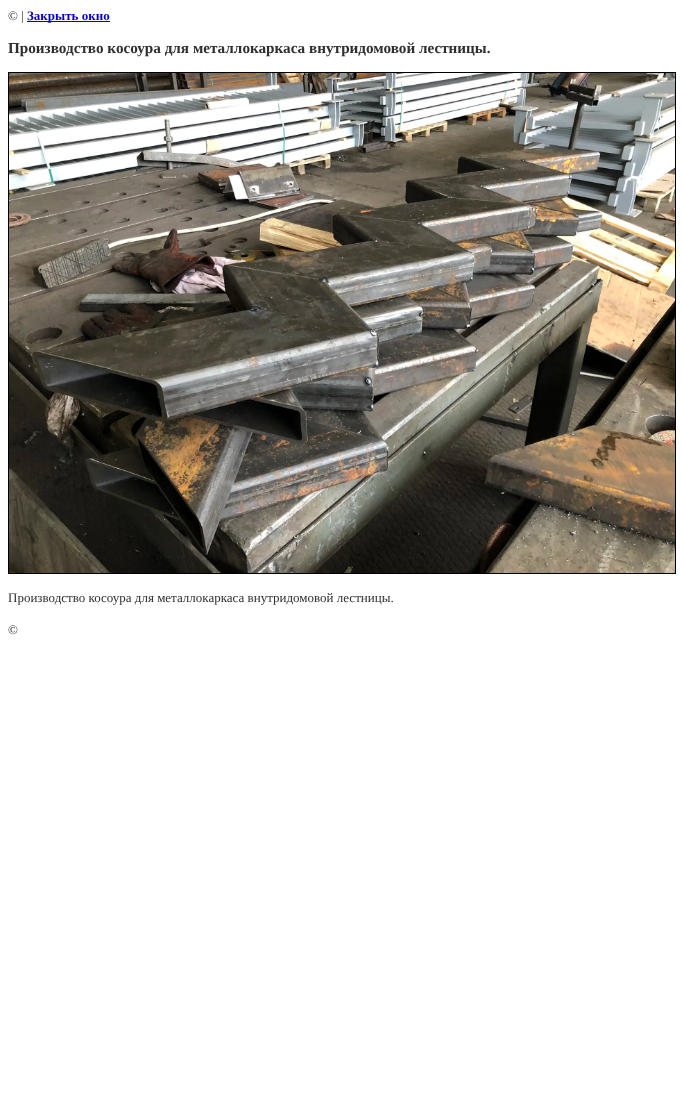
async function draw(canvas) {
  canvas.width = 682
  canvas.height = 1114
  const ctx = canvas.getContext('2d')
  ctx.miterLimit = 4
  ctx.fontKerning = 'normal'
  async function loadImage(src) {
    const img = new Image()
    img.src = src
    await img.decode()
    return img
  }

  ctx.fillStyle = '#fff'
  ctx.fillRect(0, 0, 682, 1114)
  ctx.font = '13px Liberation Serif'
  ctx.fillStyle = '#302f2f'
  ctx.fillText('© |', 8, 20)
  ctx.fillStyle = '#00c'
  ctx.fillRect(27, 21, 83, 1)
  ctx.font = 'bold 13px Liberation Serif'
  ctx.fillText('Закрыть окно', 27, 20)
  ctx.font = 'bold 15.2px Liberation Serif'
  ctx.fillStyle = '#302f2f'
  ctx.fillText('Производство косоура для металлокаркаса внутридомовой лестницы.', 8, 53)
  ctx.strokeStyle = '#000'
  ctx.strokeRect(8.5, 72.5, 667, 501)
  ctx.drawImage(await loadImage('image0.png'), 9, 73, 666, 500)
  ctx.font = '13px Liberation Serif'
  ctx.fillText('Производство косоура для металлокаркаса внутридомовой лестницы.', 8, 602)
  ctx.fillText('©', 8, 634)
}

draw(document.querySelector('canvas'))
